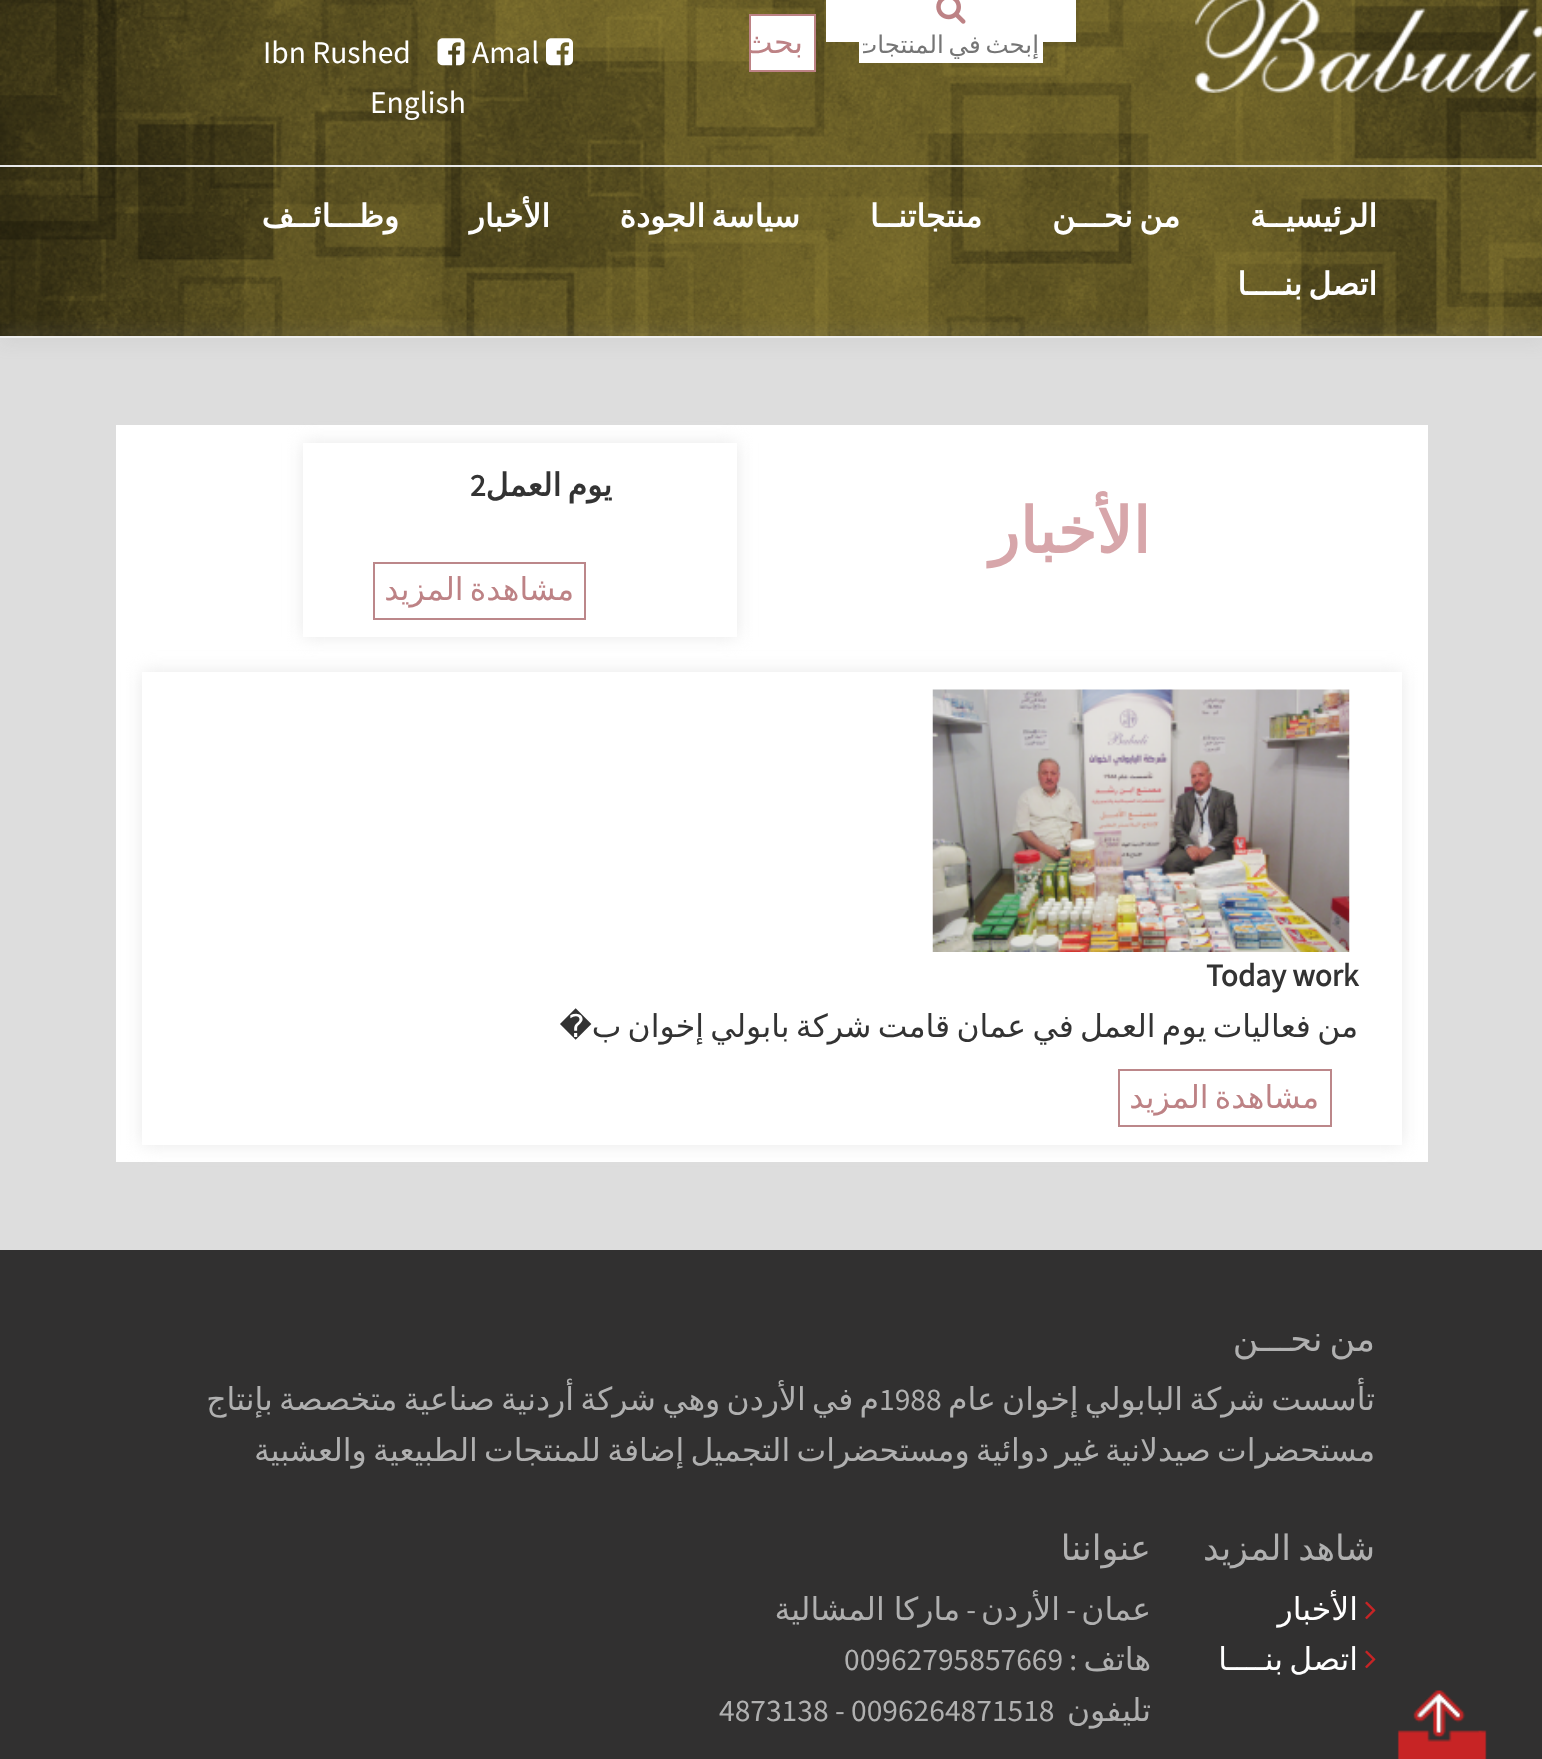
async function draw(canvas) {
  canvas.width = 1542
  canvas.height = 1759
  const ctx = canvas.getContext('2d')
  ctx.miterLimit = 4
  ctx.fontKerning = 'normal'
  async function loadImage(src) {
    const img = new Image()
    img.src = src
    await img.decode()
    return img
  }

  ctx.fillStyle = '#ddd'
  ctx.fillRect(0, 0, 1542, 1759)
  ctx.drawImage(await loadImage('image0.png'), 0, 0, 1542, 336)
  ctx.drawImage(await loadImage('image1.png'), 1195, 0, 347, 93)
  ctx.fillStyle = '#fff'
  ctx.fillRect(826, 0, 250, 42)
  ctx.drawImage(await loadImage('image2.png'), 936, 0, 30, 24)
  ctx.fillRect(859, 42, 184, 21)
  ctx.save()
  ctx.beginPath()
  ctx.rect(863, 28, 177, 32)
  ctx.clip()
  ctx.wordSpacing = '-3px'
  ctx.direction = 'rtl'
  ctx.font = '24.5px DejaVu Sans'
  ctx.fillStyle = '#757575'
  ctx.fillText('إبحث في المنتجات', 1039, 53)
  ctx.restore()
  ctx.beginPath()
  ctx.rect(750, 15, 65, 56)
  ctx.fill()
  ctx.strokeStyle = '#bd8285'
  ctx.lineWidth = 2
  ctx.stroke()
  ctx.save()
  ctx.beginPath()
  ctx.rect(751, 16, 63, 54)
  ctx.clip()
  ctx.direction = 'rtl'
  ctx.font = '31.5px DejaVu Sans'
  ctx.fillStyle = '#bd8285'
  ctx.fillText('بحث', 803, 53)
  ctx.restore()
  ctx.drawImage(await loadImage('image3.png'), 546, 38, 27, 28)
  ctx.font = '31.5px Source Sans Pro'
  ctx.fillText('Amal', 472, 63)
  ctx.drawImage(await loadImage('image4.png'), 437, 38, 28, 28)
  ctx.fillText('Ibn Rushed', 263, 63)
  ctx.fillText('English', 370, 113)
  ctx.fillStyle = '#e8e8e8'
  ctx.fillRect(0, 165, 1542, 2)
  ctx.direction = 'rtl'
  ctx.font = 'bold 31.5px DejaVu Sans'
  ctx.fillStyle = '#fff'
  ctx.fillText('الرئيسيــة', 1377, 227)
  ctx.wordSpacing = '-3.75px'
  ctx.fillText('من نحـــن', 1180, 227)
  ctx.wordSpacing = '0px'
  ctx.fillText('منتجاتنــا', 982, 227)
  ctx.wordSpacing = '-3.75px'
  ctx.fillText('سياسة الجودة', 800, 227)
  ctx.wordSpacing = '0px'
  ctx.fillText('الأخبار', 550, 227)
  ctx.fillText('وظـــائــف', 399, 227)
  ctx.wordSpacing = '-3.75px'
  ctx.fillText('اتصل بنــــا', 1377, 295)
  ctx.fillStyle = '#999'
  ctx.filter = 'blur(9px)'
  ctx.beginPath()
  ctx.rect(0, 336, 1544, 2)
  ctx.fill()
  ctx.filter = 'none'
  ctx.fillStyle = '#eee'
  ctx.fillRect(0, 336, 1542, 2)
  ctx.fillStyle = '#fff'
  ctx.fillRect(116, 425, 1312, 737)
  ctx.wordSpacing = '0px'
  ctx.font = 'bold 63px DejaVu Sans'
  ctx.fillStyle = '#d7a6aa'
  ctx.fillText('الأخبار', 1150, 553)
  ctx.save()
  ctx.beginPath()
  ctx.moveTo(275, 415)
  ctx.lineTo(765, 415)
  ctx.lineTo(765, 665)
  ctx.lineTo(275, 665)
  ctx.closePath()
  ctx.moveTo(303, 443)
  ctx.lineTo(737, 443)
  ctx.lineTo(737, 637)
  ctx.lineTo(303, 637)
  ctx.closePath()
  ctx.clip('evenodd')
  ctx.fillStyle = '#e8e8e8'
  ctx.filter = 'blur(9px)'
  ctx.beginPath()
  ctx.rect(303, 443, 434, 194)
  ctx.fill()
  ctx.filter = 'none'
  ctx.restore()
  ctx.wordSpacing = '-3.75px'
  ctx.font = 'bold 31.5px DejaVu Sans'
  ctx.fillStyle = '#333'
  ctx.fillText('يوم العمل', 612, 496)
  ctx.wordSpacing = '0px'
  ctx.direction = 'ltr'
  ctx.font = 'bold 31.5px Source Sans Pro'
  ctx.fillText('2', 470, 496)
  ctx.strokeStyle = '#bc878a'
  ctx.strokeRect(374, 563, 211, 56)
  ctx.wordSpacing = '-3.75px'
  ctx.direction = 'rtl'
  ctx.font = '31.5px DejaVu Sans'
  ctx.fillStyle = '#bd8285'
  ctx.fillText('مشاهدة المزيد', 574, 600)
  ctx.save()
  ctx.beginPath()
  ctx.moveTo(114, 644)
  ctx.lineTo(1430, 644)
  ctx.lineTo(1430, 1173)
  ctx.lineTo(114, 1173)
  ctx.closePath()
  ctx.moveTo(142, 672)
  ctx.lineTo(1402, 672)
  ctx.lineTo(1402, 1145)
  ctx.lineTo(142, 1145)
  ctx.closePath()
  ctx.clip('evenodd')
  ctx.fillStyle = '#e8e8e8'
  ctx.filter = 'blur(9px)'
  ctx.beginPath()
  ctx.rect(142, 672, 1260, 473)
  ctx.fill()
  ctx.filter = 'none'
  ctx.restore()
  ctx.drawImage(await loadImage('image5.png'), 932, 689, 418, 263)
  ctx.wordSpacing = '0px'
  ctx.direction = 'ltr'
  ctx.font = 'bold 31.5px Source Sans Pro'
  ctx.fillStyle = '#333'
  ctx.fillText('Today work', 1206, 986)
  ctx.wordSpacing = '-3.75px'
  ctx.direction = 'rtl'
  ctx.font = '31.5px DejaVu Sans'
  ctx.fillText('من فعاليات يوم العمل في عمان قامت شركة بابولي إخوان ب�', 1358, 1037)
  ctx.strokeRect(1119, 1070, 212, 56)
  ctx.fillStyle = '#bd8285'
  ctx.fillText('مشاهدة المزيد', 1319, 1108)
  ctx.fillStyle = '#313030'
  ctx.fillRect(0, 1250, 1542, 509)
  ctx.drawImage(await loadImage('image6.png'), 1397, 1690, 90, 69)
  ctx.wordSpacing = '-4px'
  ctx.font = '35px DejaVu Sans'
  ctx.fillStyle = '#b0b0b0'
  ctx.fillText('من نحـــن', 1375, 1351)
  ctx.wordSpacing = '-3.75px'
  ctx.font = '31.5px DejaVu Sans'
  ctx.fillText('تأسست شركة البابولي إخوان عام', 1375, 1410)
  ctx.fillText('م في الأردن وهي شركة أردنية صناعية متخصصة بإنتاج', 879, 1410)
  ctx.wordSpacing = '0px'
  ctx.direction = 'ltr'
  ctx.font = '31.5px Source Sans Pro'
  ctx.fillText('1988', 879, 1410)
  ctx.wordSpacing = '-3.75px'
  ctx.direction = 'rtl'
  ctx.font = '31.5px DejaVu Sans'
  ctx.fillText('مستحضرات صيدلانية غير دوائية ومستحضرات التجميل إضافة للمنتجات الطبيعية والعشبية', 1375, 1461)
  ctx.wordSpacing = '-4px'
  ctx.font = '35px DejaVu Sans'
  ctx.fillText('شاهد المزيد', 1375, 1560)
  ctx.drawImage(await loadImage('image7.png'), 1365, 1601, 11, 19)
  ctx.wordSpacing = '0px'
  ctx.font = '31.5px DejaVu Sans'
  ctx.fillStyle = '#fff'
  ctx.fillText('الأخبار', 1358, 1620)
  ctx.drawImage(await loadImage('image7.png'), 1365, 1650, 11, 19)
  ctx.wordSpacing = '-3.75px'
  ctx.fillText('اتصل بنــــا', 1358, 1670)
  ctx.wordSpacing = '0px'
  ctx.font = '35px DejaVu Sans'
  ctx.fillStyle = '#b0b0b0'
  ctx.fillText('عنواننا', 1151, 1560)
  ctx.font = '31.5px DejaVu Sans'
  ctx.fillText('عمان', 1151, 1620)
  ctx.font = '31.5px Source Sans Pro'
  ctx.fillText('-', 1076, 1620)
  ctx.font = '31.5px DejaVu Sans'
  ctx.fillText('الأردن', 1060, 1620)
  ctx.font = '31.5px Source Sans Pro'
  ctx.fillText('-', 976, 1620)
  ctx.wordSpacing = '-1px'
  ctx.font = '31.5px DejaVu Sans'
  ctx.fillText('ماركا المشالية', 960, 1620)
  ctx.wordSpacing = '0px'
  ctx.fillText('هاتف', 1151, 1670)
  ctx.font = '31.5px Source Sans Pro'
  ctx.fillText(':', 1077, 1670)
  ctx.direction = 'ltr'
  ctx.fillText('00962795857669', 844, 1670)
  ctx.direction = 'rtl'
  ctx.font = '31.5px DejaVu Sans'
  ctx.fillText('تليفون', 1151, 1721)
  ctx.direction = 'ltr'
  ctx.font = '31.5px Source Sans Pro'
  ctx.fillText('4873138 - 0096264871518', 719, 1721)
}

draw(document.querySelector('canvas'))
